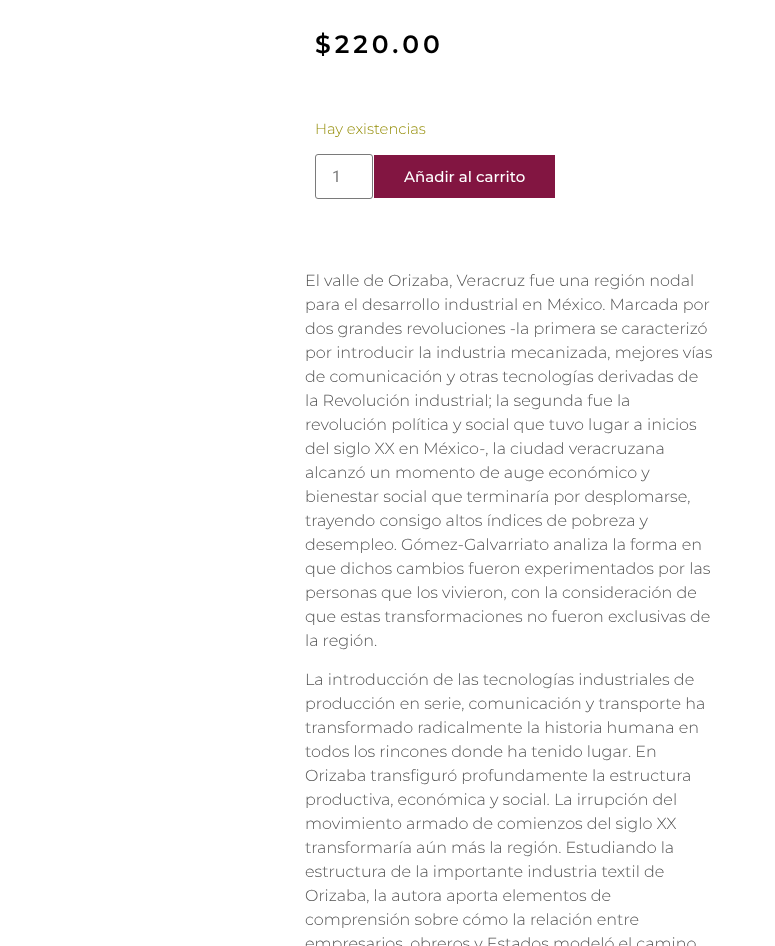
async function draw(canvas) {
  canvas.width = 775
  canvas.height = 946
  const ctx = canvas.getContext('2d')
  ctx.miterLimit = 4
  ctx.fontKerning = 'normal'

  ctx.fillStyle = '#fff'
  ctx.fillRect(0, 0, 775, 946)
  ctx.letterSpacing = '4px'
  ctx.font = '600 25px Montserrat'
  ctx.fillStyle = '#000'
  ctx.fillText('$220.00', 315, 53)
  ctx.letterSpacing = '0px'
  ctx.font = '300 14.75px Montserrat'
  ctx.fillStyle = '#958e09'
  ctx.fillText('Hay existencias', 315, 134)
  ctx.beginPath()
  ctx.roundRect(315.5, 154.5, 57, 44, 2.5)
  ctx.strokeStyle = '#7a7a7a'
  ctx.stroke()
  ctx.font = '16px Roboto'
  ctx.fillStyle = '#7a7a7a'
  ctx.fillText('1', 332, 182)
  ctx.fillStyle = '#821541'
  ctx.fillRect(374, 155, 181, 43)
  ctx.font = '500 15px Montserrat'
  ctx.fillStyle = '#fff'
  ctx.fillText('Añadir al carrito', 404, 182)
  ctx.font = '300 16px Montserrat'
  ctx.fillStyle = '#525252'
  ctx.fillText('El valle de Orizaba, Veracruz fue una región nodal', 305, 286)
  ctx.fillText('para el desarrollo industrial en México. Marcada por', 305, 310)
  ctx.fillText('dos grandes revoluciones -la primera se caracterizó', 305, 334)
  ctx.fillText('por introducir la industria mecanizada, mejores vías', 305, 358)
  ctx.fillText('de comunicación y otras tecnologías derivadas de', 305, 382)
  ctx.fillText('la Revolución industrial; la segunda fue la', 305, 406)
  ctx.fillText('revolución política y social que tuvo lugar a inicios', 305, 430)
  ctx.fillText('del siglo XX en México-, la ciudad veracruzana', 305, 454)
  ctx.fillText('alcanzó un momento de auge económico y', 305, 478)
  ctx.fillText('bienestar social que terminaría por desplomarse,', 305, 502)
  ctx.fillText('trayendo consigo altos índices de pobreza y', 305, 526)
  ctx.fillText('desempleo. Gómez-Galvarriato analiza la forma en', 305, 550)
  ctx.fillText('que dichos cambios fueron experimentados por las', 305, 574)
  ctx.fillText('personas que los vivieron, con la consideración de', 305, 598)
  ctx.fillText('que estas transformaciones no fueron exclusivas de', 305, 622)
  ctx.fillText('la región.', 305, 646)
  ctx.fillText('La introducción de las tecnologías industriales de', 305, 685)
  ctx.fillText('producción en serie, comunicación y transporte ha', 305, 709)
  ctx.fillText('transformado radicalmente la historia humana en', 305, 733)
  ctx.fillText('todos los rincones donde ha tenido lugar. En', 305, 757)
  ctx.fillText('Orizaba transfiguró profundamente la estructura', 305, 781)
  ctx.fillText('productiva, económica y social. La irrupción del', 305, 805)
  ctx.fillText('movimiento armado de comienzos del siglo XX', 305, 829)
  ctx.fillText('transformaría aún más la región. Estudiando la', 305, 853)
  ctx.fillText('estructura de la importante industria textil de', 305, 877)
  ctx.fillText('Orizaba, la autora aporta elementos de', 305, 901)
  ctx.fillText('comprensión sobre cómo la relación entre', 305, 925)
  ctx.fillText('empresarios, obreros y Estados modeló el camino', 305, 949)
}

draw(document.querySelector('canvas'))
